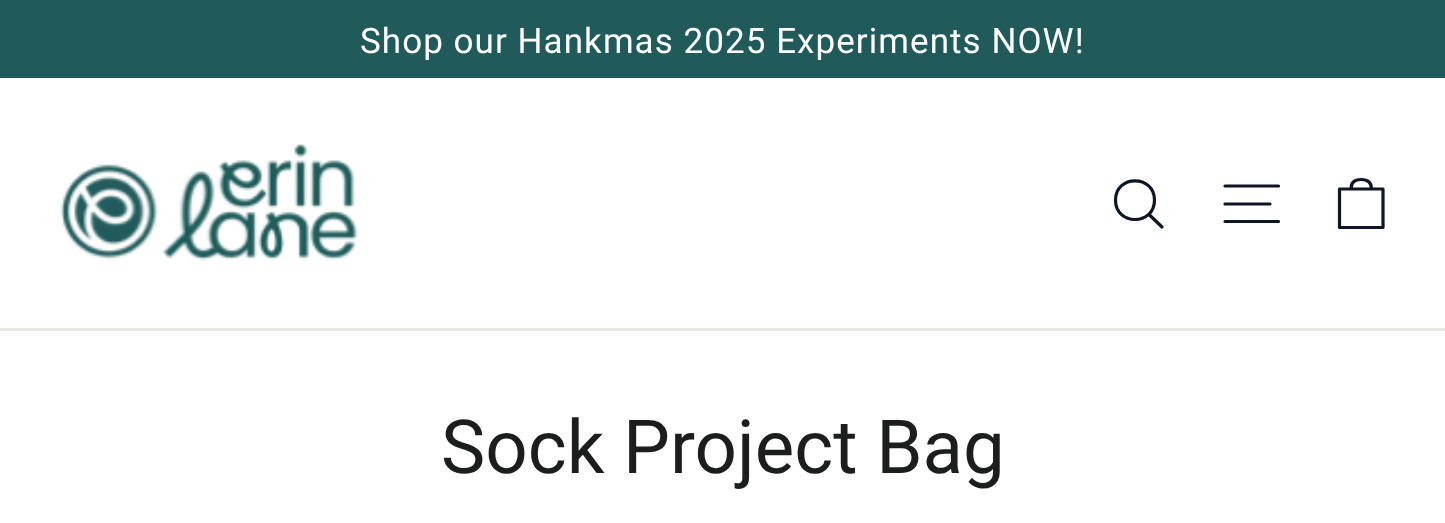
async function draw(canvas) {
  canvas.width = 1445
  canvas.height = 523
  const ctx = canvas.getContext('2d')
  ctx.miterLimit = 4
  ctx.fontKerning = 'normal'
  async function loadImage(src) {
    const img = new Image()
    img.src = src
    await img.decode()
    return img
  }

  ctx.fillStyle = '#fff'
  ctx.fillRect(0, 0, 1445, 523)
  ctx.fillStyle = '#215a5a'
  ctx.fillRect(0, 0, 1445, 78)
  ctx.letterSpacing = '1.05px'
  ctx.font = '35px Roboto'
  ctx.fillStyle = '#fff'
  ctx.fillText('Shop our Hankmas 2025 Experiments NOW!', 360, 53)
  ctx.fillStyle = '#e8e8e1'
  ctx.fillRect(0, 328, 1445, 3)
  ctx.drawImage(await loadImage('image0.png'), 60, 144, 299, 117)
  ctx.beginPath()
  ctx.moveTo(1154.5, 200)
  ctx.bezierCurveTo(1154.5, 226, 1115.5, 226, 1115.5, 200)
  ctx.bezierCurveTo(1115.5, 174.5, 1154.5, 174.5, 1154.5, 200)
  ctx.closePath()
  ctx.moveTo(1162, 227)
  ctx.lineTo(1149, 214.5)
  ctx.strokeStyle = '#0e1527'
  ctx.lineWidth = 3.2
  ctx.lineCap = 'round'
  ctx.lineJoin = 'round'
  ctx.stroke()
  ctx.beginPath()
  ctx.moveTo(1225, 186)
  ctx.lineTo(1278.5, 186)
  ctx.moveTo(1225, 204)
  ctx.lineTo(1270, 204)
  ctx.moveTo(1225, 221.5)
  ctx.lineTo(1278.5, 221.5)
  ctx.stroke()
  ctx.beginPath()
  ctx.moveTo(1339.5, 189)
  ctx.lineTo(1383, 189)
  ctx.lineTo(1383, 227.5)
  ctx.lineTo(1339.5, 227.5)
  ctx.closePath()
  ctx.moveTo(1351, 189)
  ctx.bezierCurveTo(1351, 181.5, 1355.5, 179.5, 1361, 179.5)
  ctx.bezierCurveTo(1367, 179.5, 1371.5, 181.5, 1371.5, 189)
  ctx.stroke()
  ctx.letterSpacing = '0px'
  ctx.font = '74.5px Roboto'
  ctx.fillStyle = '#1c1d1d'
  ctx.fillText('Sock Project Bag', 441, 473)
}

draw(document.querySelector('canvas'))
